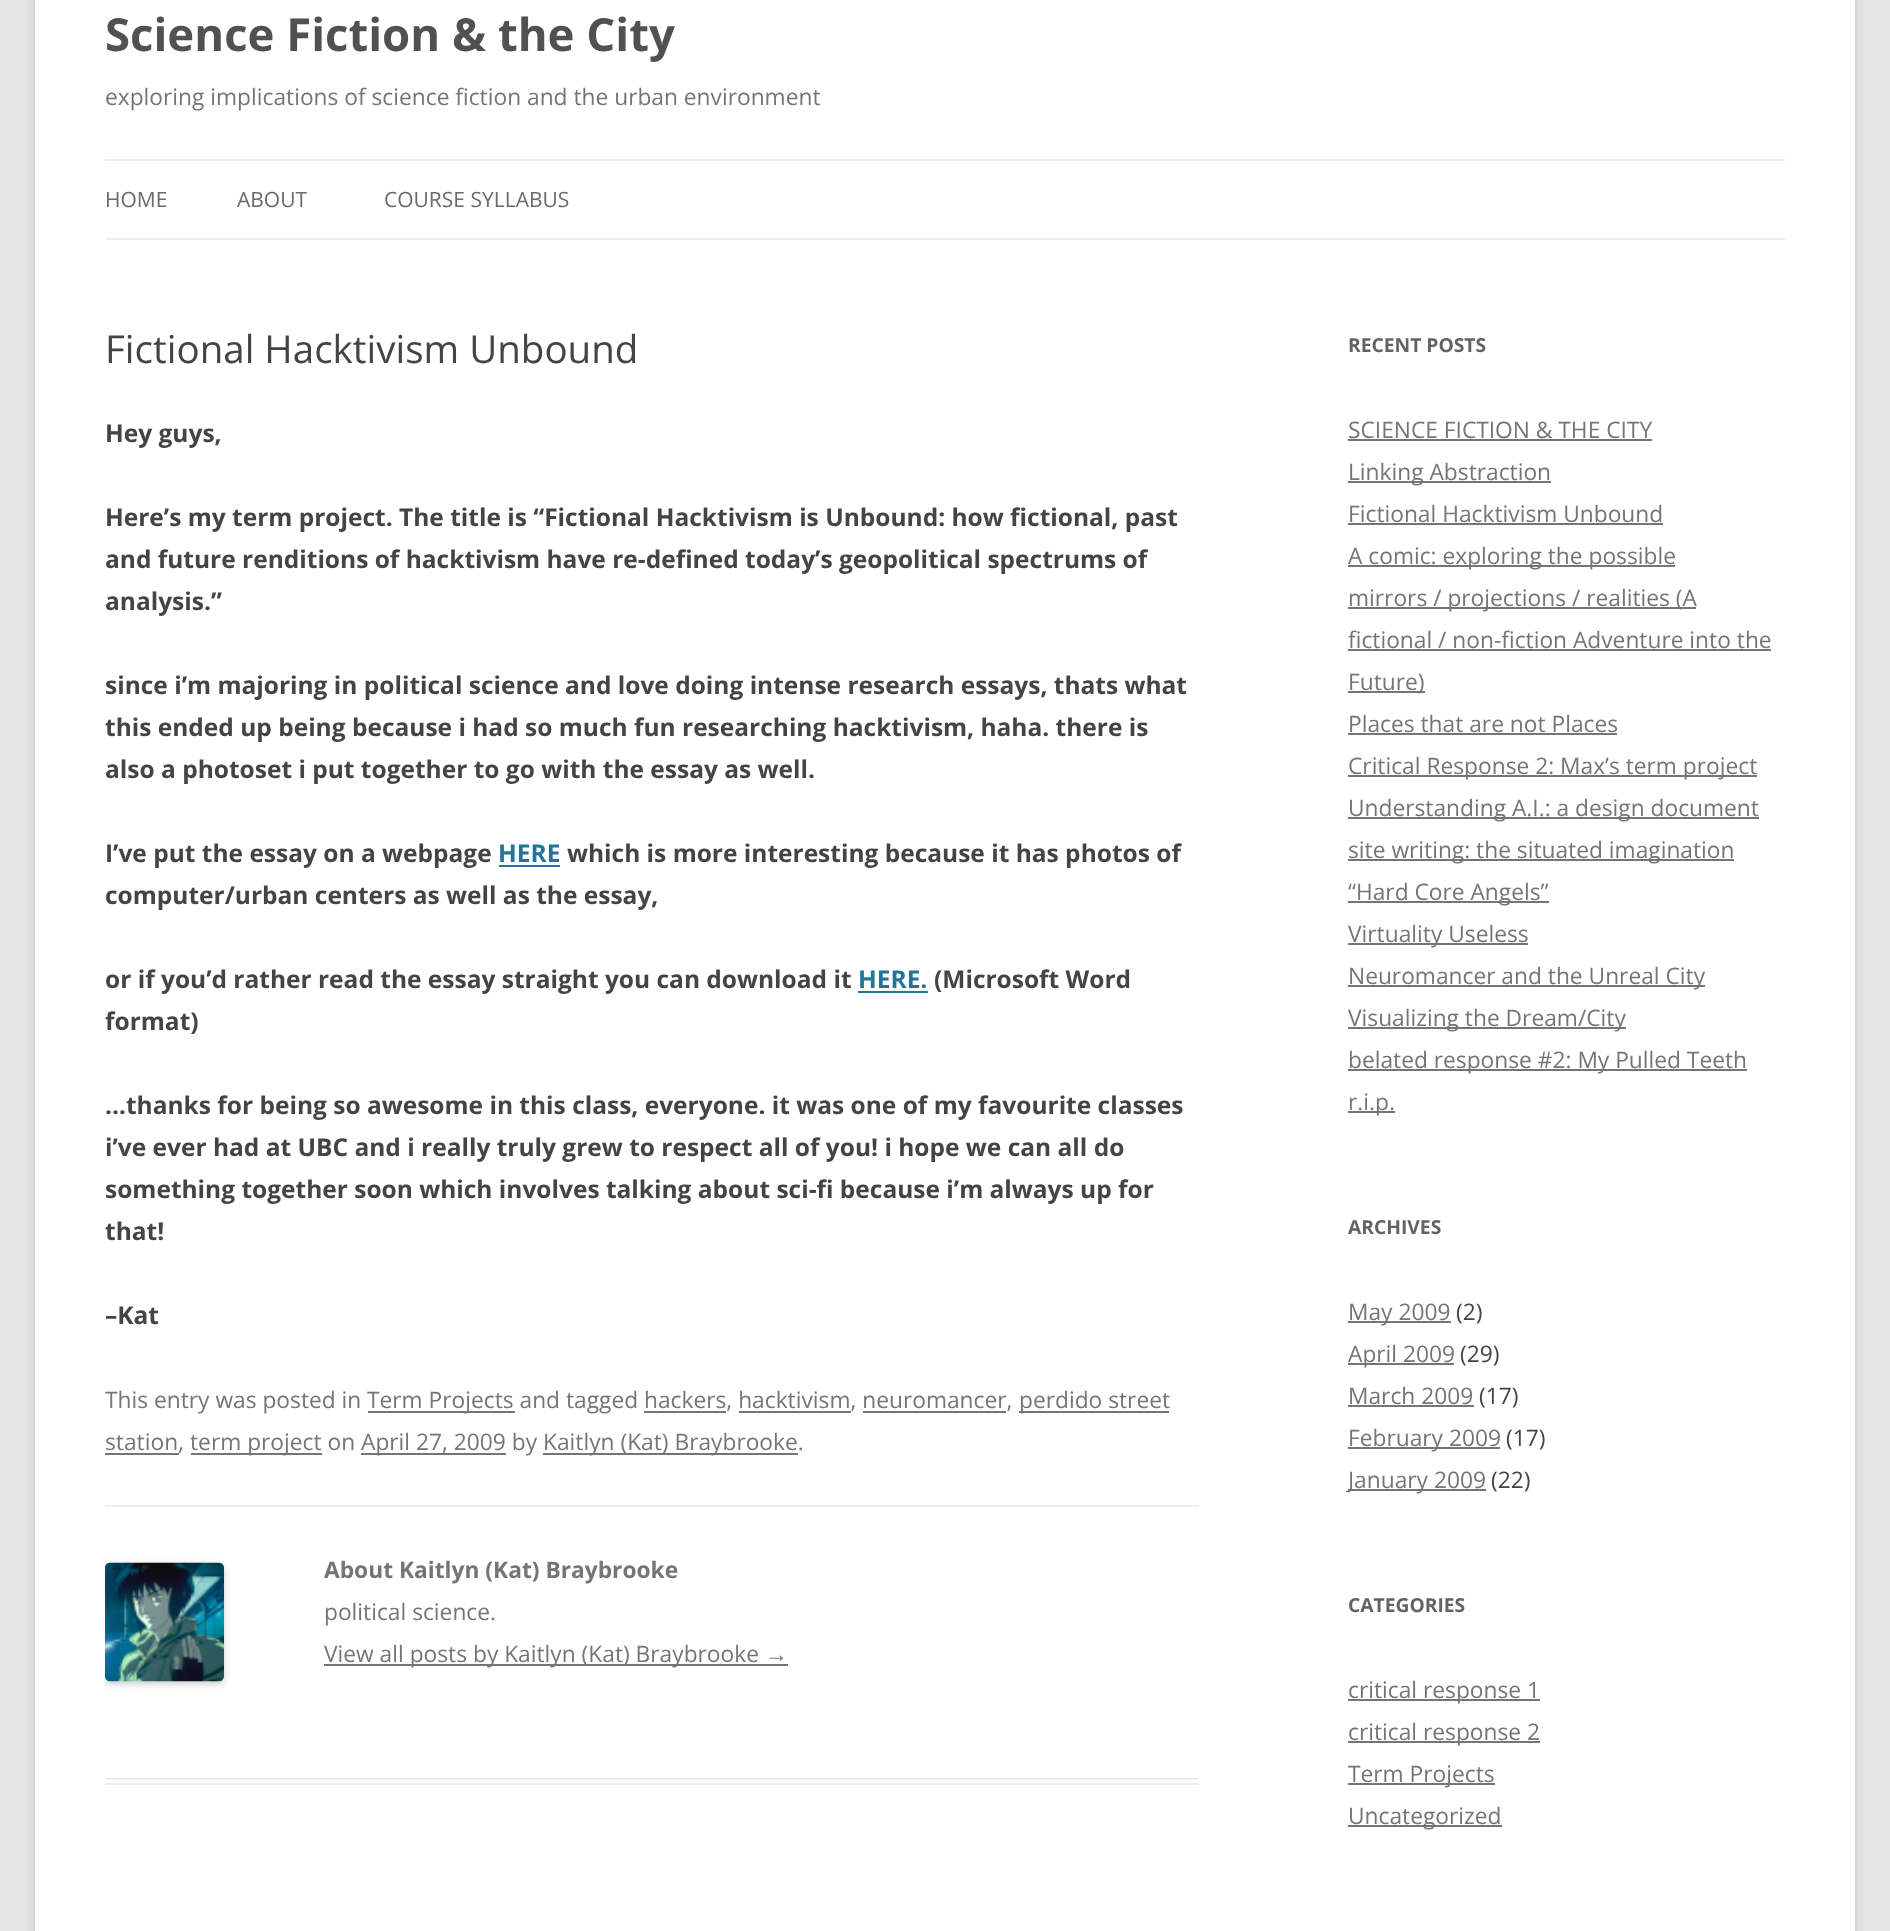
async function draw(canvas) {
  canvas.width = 1890
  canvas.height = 1931
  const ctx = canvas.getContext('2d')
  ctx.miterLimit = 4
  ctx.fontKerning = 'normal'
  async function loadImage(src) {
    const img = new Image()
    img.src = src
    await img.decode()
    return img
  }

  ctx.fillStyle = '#e6e6e6'
  ctx.fillRect(0, 0, 1890, 1931)
  ctx.fillStyle = '#6464644d'
  ctx.filter = 'blur(5px)'
  ctx.beginPath()
  ctx.rect(35, -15, 1820, 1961)
  ctx.fill()
  ctx.filter = 'none'
  ctx.fillStyle = '#fff'
  ctx.fillRect(35, 0, 1820, 1931)
  ctx.font = 'bold 45.5px Open Sans'
  ctx.fillStyle = '#515151'
  ctx.fillText('Science Fiction & the City', 105, 51)
  ctx.font = '22.75px Open Sans'
  ctx.fillStyle = '#757575'
  ctx.fillText('exploring implications of science fiction and the urban environment', 105, 105)
  ctx.fillStyle = '#ededed'
  ctx.fillRect(105, 159, 1680, 2)
  ctx.fillRect(105, 238, 1680, 2)
  ctx.font = '21px Open Sans'
  ctx.fillStyle = '#6a6a6a'
  ctx.fillText('HOME', 105, 207)
  ctx.fillText('ABOUT', 237, 207)
  ctx.fillText('COURSE SYLLABUS', 384, 207)
  ctx.fillStyle = '#ededed'
  ctx.fillRect(105, 1778, 1094, 2)
  ctx.fillRect(105, 1783, 1094, 2)
  ctx.font = '38.5px Open Sans'
  ctx.fillStyle = '#444'
  ctx.fillText('Fictional Hacktivism Unbound', 105, 363)
  ctx.font = 'bold 24.5px Open Sans'
  ctx.fillText('Hey guys,', 105, 442)
  ctx.fillText('Here’s my term project. The title is “Fictional Hacktivism is Unbound: how fictional, past', 105, 526)
  ctx.fillText('and future renditions of hacktivism have re-defined today’s geopolitical spectrums of', 105, 568)
  ctx.fillText('analysis.”', 105, 610)
  ctx.fillText('since i’m majoring in political science and love doing intense research essays, thats what', 105, 694)
  ctx.fillText('this ended up being because i had so much fun researching hacktivism, haha. there is', 105, 736)
  ctx.fillText('also a photoset i put together to go with the essay as well.', 105, 778)
  ctx.fillText('I’ve put the essay on a webpage', 105, 862)
  ctx.fillStyle = '#21759b'
  ctx.fillText('HERE', 498, 862)
  ctx.fillRect(499, 865, 61, 2)
  ctx.fillStyle = '#444'
  ctx.fillText('which is more interesting because it has photos of', 567, 862)
  ctx.fillText('computer/urban centers as well as the essay,', 105, 904)
  ctx.fillText('or if you’d rather read the essay straight you can download it', 105, 988)
  ctx.fillStyle = '#21759b'
  ctx.fillText('HERE.', 858, 988)
  ctx.fillRect(858, 991, 70, 2)
  ctx.fillStyle = '#444'
  ctx.fillText('(Microsoft Word', 934, 988)
  ctx.fillText('format)', 105, 1030)
  ctx.fillText('…thanks for being so awesome in this class, everyone. it was one of my favourite classes', 105, 1114)
  ctx.fillText('i’ve ever had at UBC and i really truly grew to respect all of you! i hope we can all do', 105, 1156)
  ctx.fillText('something together soon which involves talking about sci-fi because i’m always up for', 105, 1198)
  ctx.fillText('that!', 105, 1240)
  ctx.fillText('–Kat', 105, 1324)
  ctx.font = '22.75px Open Sans'
  ctx.fillStyle = '#757575'
  ctx.fillText('This entry was posted in', 105, 1408)
  ctx.fillRect(368, 1411, 147, 2)
  ctx.fillText('Term Projects and tagged hackers, hacktivism, neuromancer,', 367, 1408)
  ctx.fillRect(1019, 1411, 150, 2)
  ctx.fillText('perdido street', 1019, 1408)
  ctx.fillRect(644, 1411, 82, 2)
  ctx.fillRect(739, 1411, 112, 2)
  ctx.fillRect(863, 1411, 143, 2)
  ctx.fillText('station,', 105, 1450)
  ctx.fillRect(105, 1453, 74, 2)
  ctx.fillRect(191, 1453, 131, 2)
  ctx.fillText('term project on', 190, 1450)
  ctx.fillRect(361, 1453, 145, 2)
  ctx.fillText('April 27, 2009 by', 361, 1450)
  ctx.fillRect(543, 1453, 255, 2)
  ctx.fillText('Kaitlyn (Kat) Braybrooke.', 543, 1450)
  ctx.fillStyle = '#ededed'
  ctx.fillRect(105, 1505, 1094, 2)
  ctx.save()
  ctx.beginPath()
  ctx.rect(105, 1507, 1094, 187)
  ctx.clip()
  ctx.fillStyle = '#00000033'
  ctx.filter = 'blur(3.5px)'
  ctx.beginPath()
  ctx.roundRect(105, 1565, 119, 119, 5)
  ctx.fill()
  ctx.filter = 'none'
  ctx.restore()
  ctx.drawImage(await loadImage('image0.png'), 105, 1562, 119, 120)
  ctx.font = 'bold 22.75px Open Sans'
  ctx.fillStyle = '#757575'
  ctx.fillText('About Kaitlyn (Kat) Braybrooke', 324, 1578)
  ctx.font = '22.75px Open Sans'
  ctx.fillText('political science.', 324, 1620)
  ctx.fillRect(324, 1664, 464, 2)
  ctx.fillText('View all posts by Kaitlyn (Kat) Braybrooke', 324, 1662)
  ctx.font = '22.75px Liberation Sans'
  ctx.fillText('→', 765, 1662)
  ctx.font = 'bold 19.25px Open Sans'
  ctx.fillStyle = '#636363'
  ctx.fillText('RECENT POSTS', 1348, 352)
  ctx.font = '22.75px Open Sans'
  ctx.fillStyle = '#757575'
  ctx.fillText('SCIENCE FICTION & THE CITY', 1348, 438)
  ctx.fillRect(1348, 439, 304, 2)
  ctx.fillRect(1348, 481, 203, 2)
  ctx.fillText('Linking Abstraction', 1348, 480)
  ctx.fillText('Fictional Hacktivism Unbound', 1348, 522)
  ctx.fillRect(1348, 523, 315, 2)
  ctx.fillRect(1348, 565, 327, 2)
  ctx.fillText('A comic: exploring the possible', 1348, 564)
  ctx.fillRect(1348, 607, 348, 2)
  ctx.fillText('mirrors / projections / realities (A', 1348, 606)
  ctx.fillText('fictional / non-fiction Adventure into the', 1348, 648)
  ctx.fillRect(1348, 649, 423, 2)
  ctx.fillRect(1348, 691, 77, 2)
  ctx.fillText('Future)', 1348, 690)
  ctx.fillText('Places that are not Places', 1348, 732)
  ctx.fillRect(1348, 733, 269, 2)
  ctx.fillRect(1348, 775, 409, 2)
  ctx.fillText('Critical Response 2: Max’s term project', 1348, 774)
  ctx.fillRect(1348, 817, 411, 2)
  ctx.fillText('Understanding A.I.: a design document', 1348, 816)
  ctx.fillRect(1348, 859, 386, 2)
  ctx.fillText('site writing: the situated imagination', 1348, 858)
  ctx.fillRect(1348, 901, 201, 2)
  ctx.fillText('“Hard Core Angels”', 1348, 900)
  ctx.fillRect(1348, 943, 180, 2)
  ctx.fillText('Virtuality Useless', 1348, 942)
  ctx.fillRect(1348, 985, 357, 2)
  ctx.fillText('Neuromancer and the Unreal City', 1348, 984)
  ctx.fillRect(1348, 1027, 278, 2)
  ctx.fillText('Visualizing the Dream/City', 1348, 1026)
  ctx.fillRect(1348, 1069, 399, 2)
  ctx.fillText('belated response #2: My Pulled Teeth', 1348, 1068)
  ctx.fillRect(1348, 1111, 47, 2)
  ctx.fillText('r.i.p.', 1348, 1110)
  ctx.font = 'bold 19.25px Open Sans'
  ctx.fillStyle = '#636363'
  ctx.fillText('ARCHIVES', 1348, 1234)
  ctx.fillStyle = '#757575'
  ctx.fillRect(1348, 1321, 103, 2)
  ctx.font = '22.75px Open Sans'
  ctx.fillText('May 2009', 1348, 1320)
  ctx.fillStyle = '#444'
  ctx.fillText('(2)', 1456, 1320)
  ctx.fillStyle = '#757575'
  ctx.fillRect(1348, 1363, 106, 2)
  ctx.fillText('April 2009', 1348, 1362)
  ctx.fillStyle = '#444'
  ctx.fillText('(29)', 1460, 1362)
  ctx.fillStyle = '#757575'
  ctx.fillText('March 2009', 1348, 1404)
  ctx.fillRect(1348, 1405, 126, 2)
  ctx.fillStyle = '#444'
  ctx.fillText('(17)', 1479, 1404)
  ctx.fillStyle = '#757575'
  ctx.fillRect(1348, 1447, 152, 2)
  ctx.fillText('February 2009', 1348, 1446)
  ctx.fillStyle = '#444'
  ctx.fillText('(17)', 1506, 1446)
  ctx.fillStyle = '#757575'
  ctx.fillRect(1348, 1489, 138, 2)
  ctx.fillText('January 2009', 1348, 1488)
  ctx.fillStyle = '#444'
  ctx.fillText('(22)', 1491, 1488)
  ctx.font = 'bold 19.25px Open Sans'
  ctx.fillStyle = '#636363'
  ctx.fillText('CATEGORIES', 1348, 1612)
  ctx.fillStyle = '#757575'
  ctx.fillRect(1348, 1699, 192, 2)
  ctx.font = '22.75px Open Sans'
  ctx.fillText('critical response 1', 1348, 1698)
  ctx.fillRect(1348, 1741, 192, 2)
  ctx.fillText('critical response 2', 1348, 1740)
  ctx.fillRect(1348, 1783, 147, 2)
  ctx.fillText('Term Projects', 1348, 1782)
  ctx.fillRect(1348, 1825, 154, 2)
  ctx.fillText('Uncategorized', 1348, 1824)
}

draw(document.querySelector('canvas'))
